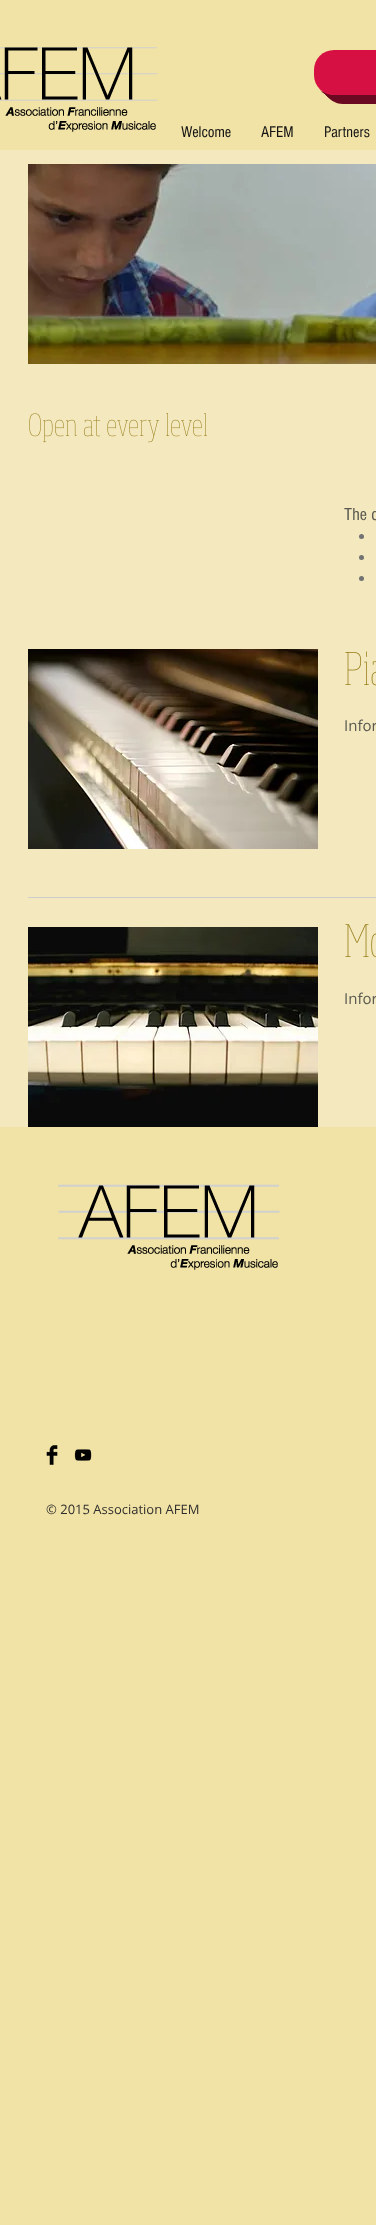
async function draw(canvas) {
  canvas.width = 376
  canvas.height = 2225
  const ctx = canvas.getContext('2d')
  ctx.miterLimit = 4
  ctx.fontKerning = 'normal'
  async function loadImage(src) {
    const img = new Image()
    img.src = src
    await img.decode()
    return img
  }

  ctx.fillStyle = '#f1e2a5'
  ctx.fillRect(0, 0, 376, 2225)
  ctx.drawImage(await loadImage('image0.png'), 0, 47, 158, 85)
  ctx.fillStyle = '#6b0822'
  ctx.beginPath()
  ctx.moveTo(325, 93)
  ctx.bezierCurveTo(328, 99, 335, 104, 343, 104)
  ctx.lineTo(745, 104)
  ctx.bezierCurveTo(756, 104, 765, 95, 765, 84)
  ctx.lineTo(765, 79)
  ctx.bezierCurveTo(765, 71, 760, 64, 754, 61)
  ctx.bezierCurveTo(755, 64, 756, 67, 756, 70)
  ctx.lineTo(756, 75)
  ctx.bezierCurveTo(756, 86, 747, 95, 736, 95)
  ctx.lineTo(334, 95)
  ctx.bezierCurveTo(331, 95, 328, 94, 325, 93)
  ctx.closePath()
  ctx.fill()
  ctx.beginPath()
  ctx.moveTo(324, 92)
  ctx.bezierCurveTo(327, 98, 334, 102, 341, 102)
  ctx.lineTo(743, 102)
  ctx.bezierCurveTo(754, 102, 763, 93, 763, 82)
  ctx.lineTo(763, 77)
  ctx.bezierCurveTo(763, 70, 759, 63, 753, 60)
  ctx.bezierCurveTo(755, 63, 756, 66, 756, 70)
  ctx.lineTo(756, 75)
  ctx.bezierCurveTo(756, 86, 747, 95, 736, 95)
  ctx.lineTo(334, 95)
  ctx.bezierCurveTo(330, 95, 327, 94, 324, 92)
  ctx.closePath()
  ctx.fill()
  ctx.beginPath()
  ctx.moveTo(323, 91)
  ctx.bezierCurveTo(326, 97, 332, 100, 339, 100)
  ctx.lineTo(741, 100)
  ctx.bezierCurveTo(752, 100, 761, 91, 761, 80)
  ctx.lineTo(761, 75)
  ctx.bezierCurveTo(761, 68, 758, 62, 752, 59)
  ctx.bezierCurveTo(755, 62, 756, 66, 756, 70)
  ctx.lineTo(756, 75)
  ctx.bezierCurveTo(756, 86, 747, 95, 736, 95)
  ctx.lineTo(334, 95)
  ctx.bezierCurveTo(330, 95, 326, 94, 323, 91)
  ctx.closePath()
  ctx.fill()
  ctx.beginPath()
  ctx.moveTo(321, 91)
  ctx.bezierCurveTo(325, 95, 331, 98, 337, 98)
  ctx.lineTo(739, 98)
  ctx.bezierCurveTo(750, 98, 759, 89, 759, 78)
  ctx.lineTo(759, 73)
  ctx.bezierCurveTo(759, 67, 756, 61, 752, 57)
  ctx.bezierCurveTo(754, 61, 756, 65, 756, 70)
  ctx.lineTo(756, 75)
  ctx.bezierCurveTo(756, 86, 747, 95, 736, 95)
  ctx.lineTo(334, 95)
  ctx.bezierCurveTo(329, 95, 325, 93, 321, 91)
  ctx.closePath()
  ctx.fill()
  ctx.beginPath()
  ctx.moveTo(320, 90)
  ctx.bezierCurveTo(324, 94, 329, 96, 335, 96)
  ctx.lineTo(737, 96)
  ctx.bezierCurveTo(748, 96, 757, 87, 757, 76)
  ctx.lineTo(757, 71)
  ctx.bezierCurveTo(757, 65, 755, 60, 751, 56)
  ctx.bezierCurveTo(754, 60, 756, 65, 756, 70)
  ctx.lineTo(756, 75)
  ctx.bezierCurveTo(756, 86, 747, 95, 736, 95)
  ctx.lineTo(334, 95)
  ctx.bezierCurveTo(329, 95, 324, 93, 320, 90)
  ctx.closePath()
  ctx.fill()
  ctx.fillStyle = '#d61043'
  ctx.beginPath()
  ctx.roundRect(314, 50, 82, 45, 20)
  ctx.fill()
  ctx.font = '16px "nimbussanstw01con"'
  ctx.fillStyle = '#141414'
  ctx.fillText('Welcome', 181, 137)
  ctx.fillText('AFEM', 261, 137)
  ctx.fillText('Partners', 324, 137)
  ctx.fillStyle = '#f3e8be'
  ctx.fillRect(0, 150, 376, 977)
  ctx.drawImage(await loadImage('image1.png'), 28, 164, 348, 200)
  ctx.drawImage(await loadImage('image2.png'), 29, 413, 178, 30)
  ctx.font = '18px "nimbussanstw01con"'
  ctx.fillStyle = '#5a5950'
  ctx.fillText('The c', 344, 520)
  ctx.fillStyle = '#727272'
  ctx.beginPath()
  ctx.arc(361.5, 536.5, 2.5, 0, 2 * Math.PI)
  ctx.fill()
  ctx.beginPath()
  ctx.arc(361.5, 557.5, 2.5, 0, 2 * Math.PI)
  ctx.fill()
  ctx.beginPath()
  ctx.arc(361.5, 578.5, 2.5, 0, 2 * Math.PI)
  ctx.fill()
  ctx.drawImage(await loadImage('image3.png'), 28, 649, 290, 200)
  ctx.drawImage(await loadImage('image4.png'), 345, 651, 31, 35)
  ctx.font = '15px Open Sans'
  ctx.fillStyle = '#5a5950'
  ctx.fillText('Infor', 344, 731)
  ctx.fillStyle = '#cdcccc'
  ctx.fillRect(28, 897, 348, 1)
  ctx.drawImage(await loadImage('image5.png'), 28, 927, 290, 200)
  ctx.drawImage(await loadImage('image6.png'), 345, 924, 31, 34)
  ctx.fillStyle = '#5a5950'
  ctx.fillText('Infor', 344, 1004)
  ctx.drawImage(await loadImage('image7.png'), 58, 1184, 222, 86)
  ctx.drawImage(await loadImage('image8.png'), 46, 1445, 12, 20)
  ctx.drawImage(await loadImage('image9.png'), 74, 1449, 18, 12)
  ctx.font = '13px Open Sans'
  ctx.fillStyle = '#2f2e2e'
  ctx.fillText('© 2015 Association AFEM', 46, 1514)
}

draw(document.querySelector('canvas'))
